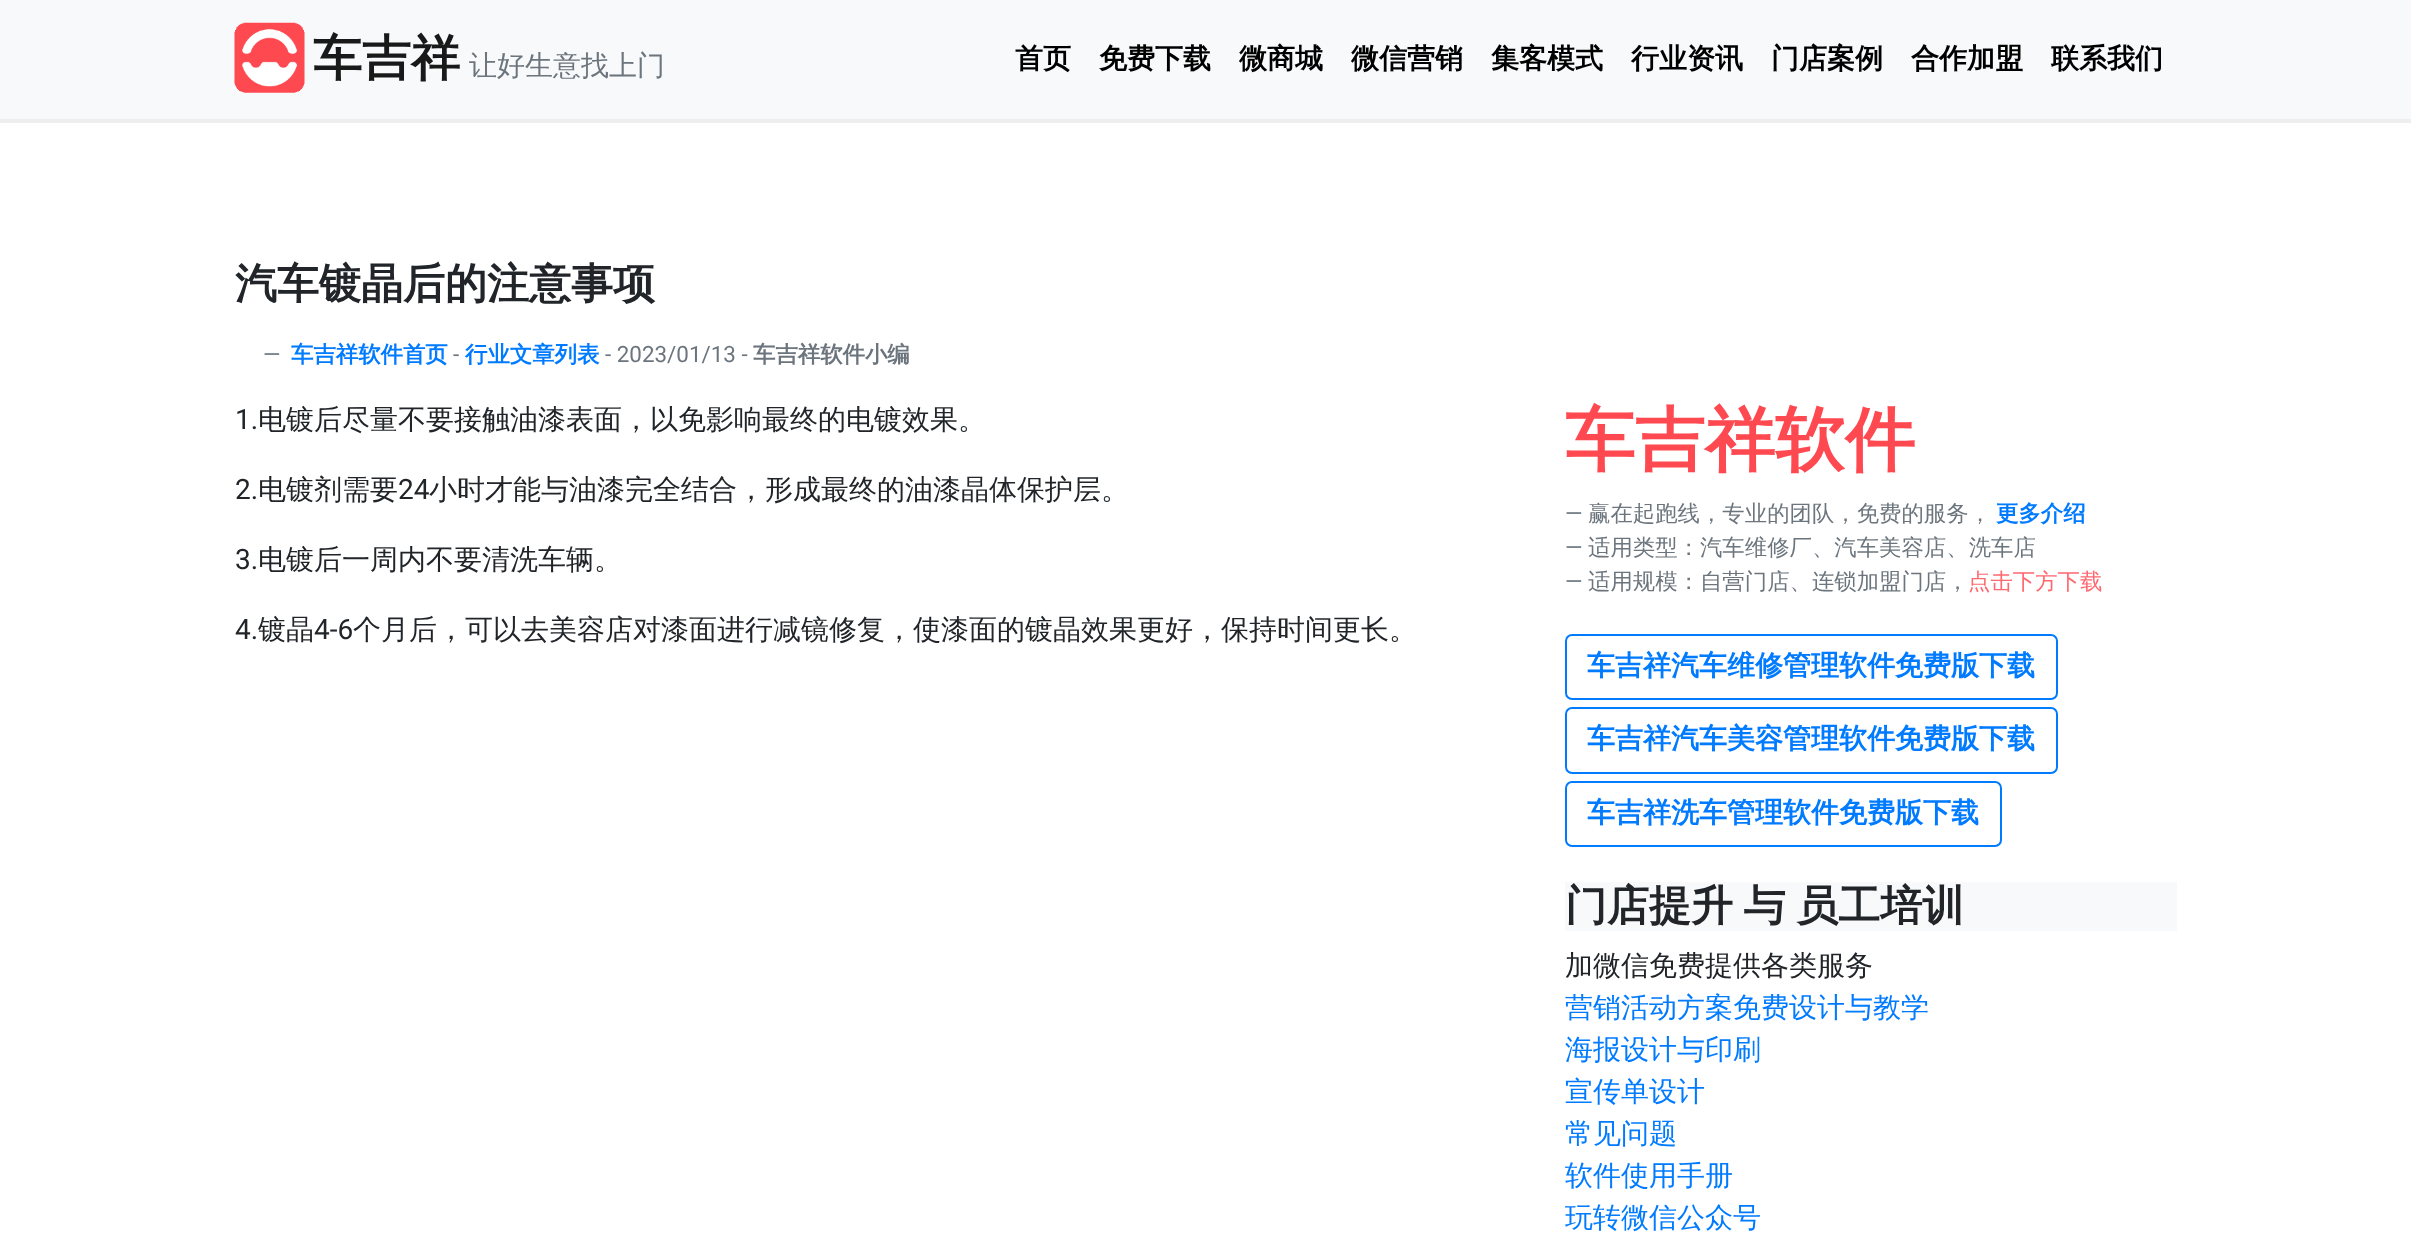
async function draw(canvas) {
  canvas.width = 2411
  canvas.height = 1248
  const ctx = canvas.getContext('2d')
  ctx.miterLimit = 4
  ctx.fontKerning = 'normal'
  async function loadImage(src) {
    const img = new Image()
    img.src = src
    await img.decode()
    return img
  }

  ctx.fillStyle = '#fff'
  ctx.fillRect(0, 0, 2411, 1248)
  ctx.fillStyle = '#f8f9fa'
  ctx.fillRect(0, 0, 2411, 119)
  ctx.fillStyle = '#eee'
  ctx.fillRect(0, 119, 2411, 4)
  ctx.drawImage(await loadImage('image0.png'), 234, 22, 71, 71)
  ctx.font = 'bold 49px WenQuanYi Zen Hei'
  ctx.fillStyle = '#191919'
  ctx.fillText('车吉祥', 313, 75)
  ctx.font = '500 28px WenQuanYi Zen Hei'
  ctx.fillStyle = '#6c757d'
  ctx.fillText('让好生意找上门', 469, 75)
  ctx.font = 'bold 28px WenQuanYi Zen Hei'
  ctx.fillStyle = '#000'
  ctx.fillText('首页', 1015, 68)
  ctx.fillText('免费下载', 1099, 68)
  ctx.fillText('微商城', 1239, 68)
  ctx.fillText('微信营销', 1351, 68)
  ctx.fillText('集客模式', 1491, 68)
  ctx.fillText('行业资讯', 1631, 68)
  ctx.fillText('门店案例', 1771, 68)
  ctx.fillText('合作加盟', 1911, 68)
  ctx.fillText('联系我们', 2051, 68)
  ctx.font = 'bold 42px WenQuanYi Zen Hei'
  ctx.fillStyle = '#212529'
  ctx.fillText('汽车镀晶后的注意事项', 235, 298)
  ctx.font = '22.4px Roboto'
  ctx.fillStyle = '#6c757d'
  ctx.fillText('—', 263, 362)
  ctx.font = 'bold 22.4px WenQuanYi Zen Hei'
  ctx.fillStyle = '#007bff'
  ctx.fillText('车吉祥软件首页', 291, 362)
  ctx.font = '22.4px Roboto'
  ctx.fillStyle = '#6c757d'
  ctx.fillText('-', 453, 362)
  ctx.font = 'bold 22.4px WenQuanYi Zen Hei'
  ctx.fillStyle = '#007bff'
  ctx.fillText('行业文章列表', 465, 362)
  ctx.font = '22.4px Roboto'
  ctx.fillStyle = '#6c757d'
  ctx.fillText('- 2023/01/13 -', 605, 362)
  ctx.font = 'bold 22.4px WenQuanYi Zen Hei'
  ctx.fillText('车吉祥软件小编', 753, 362)
  ctx.font = '28px Roboto'
  ctx.fillStyle = '#212529'
  ctx.fillText('1.', 235, 429)
  ctx.font = '500 28px WenQuanYi Zen Hei'
  ctx.fillText('电镀后尽量不要接触油漆表面，以免影响最终的电镀效果。', 258, 429)
  ctx.font = '28px Roboto'
  ctx.fillText('2.', 235, 499)
  ctx.font = '500 28px WenQuanYi Zen Hei'
  ctx.fillText('电镀剂需要', 258, 499)
  ctx.font = '28px Roboto'
  ctx.fillText('24', 398, 499)
  ctx.font = '500 28px WenQuanYi Zen Hei'
  ctx.fillText('小时才能与油漆完全结合，形成最终的油漆晶体保护层。', 429, 499)
  ctx.font = '28px Roboto'
  ctx.fillText('3.', 235, 569)
  ctx.font = '500 28px WenQuanYi Zen Hei'
  ctx.fillText('电镀后一周内不要清洗车辆。', 258, 569)
  ctx.font = '28px Roboto'
  ctx.fillText('4.', 235, 639)
  ctx.font = '500 28px WenQuanYi Zen Hei'
  ctx.fillText('镀晶', 258, 639)
  ctx.font = '28px Roboto'
  ctx.fillText('4-6', 314, 639)
  ctx.font = '500 28px WenQuanYi Zen Hei'
  ctx.fillText('个月后，可以去美容店对漆面进行减镜修复，使漆面的镀晶效果更好，保持时间更长。', 353, 639)
  ctx.font = 'bold 70px WenQuanYi Zen Hei'
  ctx.fillStyle = '#ff4951'
  ctx.fillText('车吉祥软件', 1565, 464)
  ctx.font = '22.4px Roboto'
  ctx.fillStyle = '#6c757d'
  ctx.fillText('—', 1565, 521)
  ctx.font = '500 22.4px WenQuanYi Zen Hei'
  ctx.fillText('赢在起跑线，专业的团队，免费的服务，', 1588, 521)
  ctx.font = 'bold 22.4px WenQuanYi Zen Hei'
  ctx.fillStyle = '#007bff'
  ctx.fillText('更多介绍', 1996, 521)
  ctx.font = '22.4px Roboto'
  ctx.fillStyle = '#6c757d'
  ctx.fillText('—', 1565, 555)
  ctx.font = '500 22.4px WenQuanYi Zen Hei'
  ctx.fillText('适用类型：汽车维修厂、汽车美容店、洗车店', 1588, 555)
  ctx.font = '22.4px Roboto'
  ctx.fillText('—', 1565, 589)
  ctx.font = '500 22.4px WenQuanYi Zen Hei'
  ctx.fillText('适用规模：自营门店、连锁加盟门店，', 1588, 589)
  ctx.fillStyle = '#ff686f'
  ctx.fillText('点击下方下载', 1968, 589)
  ctx.beginPath()
  ctx.roundRect(1566, 635, 491, 64, 6)
  ctx.strokeStyle = '#007bff'
  ctx.lineWidth = 2
  ctx.stroke()
  ctx.font = 'bold 28px WenQuanYi Zen Hei'
  ctx.fillStyle = '#007bff'
  ctx.fillText('车吉祥汽车维修管理软件免费版下载', 1587, 675)
  ctx.beginPath()
  ctx.roundRect(1566, 708, 491, 65, 6)
  ctx.stroke()
  ctx.fillText('车吉祥汽车美容管理软件免费版下载', 1587, 748)
  ctx.beginPath()
  ctx.roundRect(1566, 782, 435, 64, 6)
  ctx.stroke()
  ctx.fillText('车吉祥洗车管理软件免费版下载', 1587, 822)
  ctx.fillStyle = '#f8f9fa'
  ctx.fillRect(1565, 882, 612, 49)
  ctx.wordSpacing = '-2px'
  ctx.font = 'bold 42px WenQuanYi Zen Hei'
  ctx.fillStyle = '#212529'
  ctx.fillText('门店提升 与 员工培训', 1565, 920)
  ctx.wordSpacing = '0px'
  ctx.font = '500 28px WenQuanYi Zen Hei'
  ctx.fillText('加微信免费提供各类服务', 1565, 975)
  ctx.fillStyle = '#007bff'
  ctx.fillText('营销活动方案免费设计与教学', 1565, 1017)
  ctx.fillText('海报设计与印刷', 1565, 1059)
  ctx.fillText('宣传单设计', 1565, 1101)
  ctx.fillText('常见问题', 1565, 1143)
  ctx.fillText('软件使用手册', 1565, 1185)
  ctx.fillText('玩转微信公众号', 1565, 1227)
}

draw(document.querySelector('canvas'))
